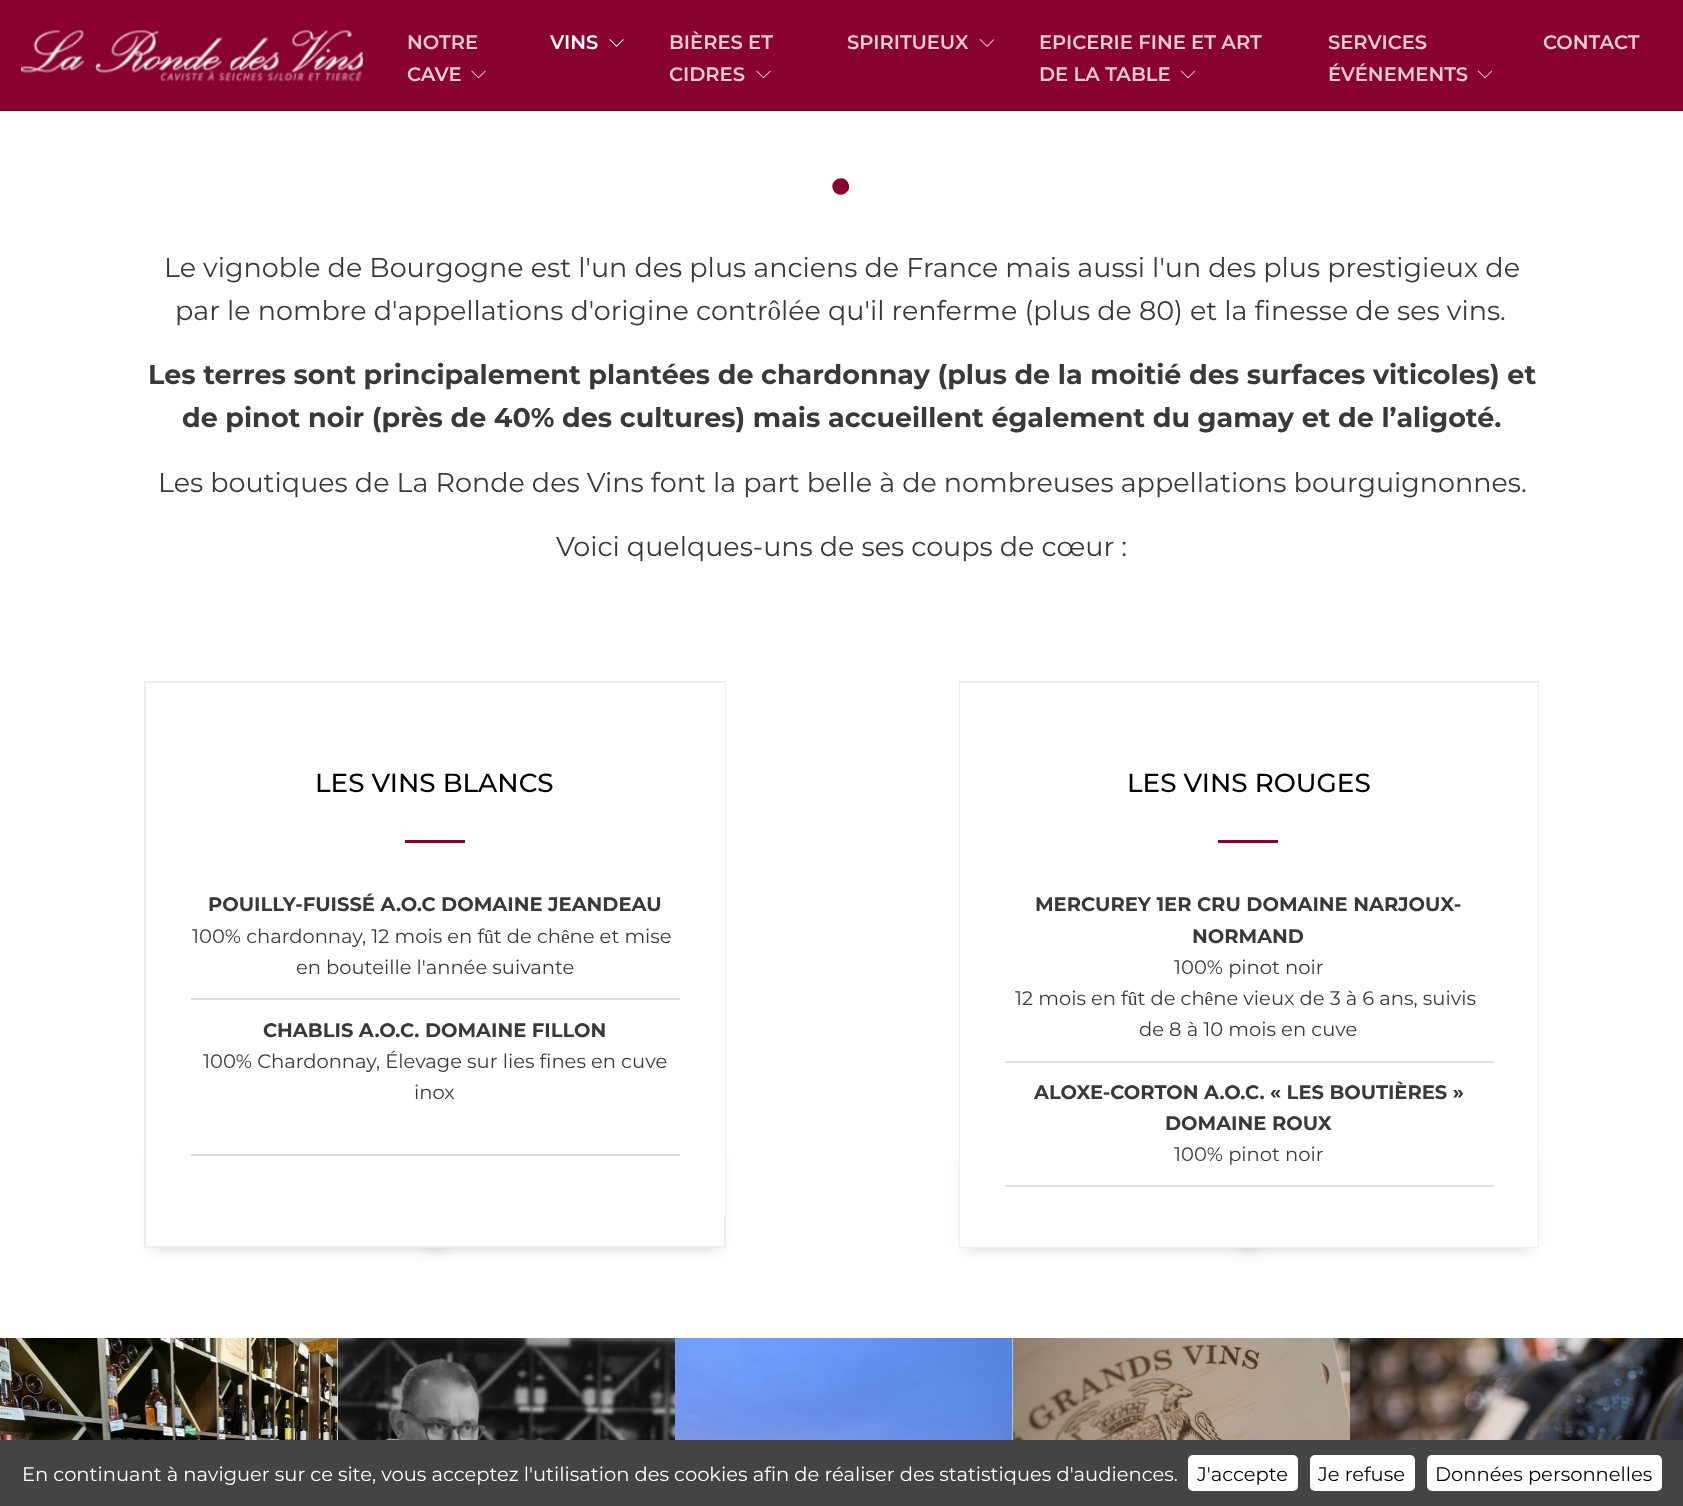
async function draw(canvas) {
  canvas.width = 1683
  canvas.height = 1506
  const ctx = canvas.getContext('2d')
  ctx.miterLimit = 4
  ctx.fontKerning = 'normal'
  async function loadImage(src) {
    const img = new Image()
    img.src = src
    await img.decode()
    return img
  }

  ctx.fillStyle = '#fff'
  ctx.fillRect(0, 0, 1683, 1506)
  ctx.fillStyle = '#88012f'
  ctx.fillRect(0, 0, 1683, 111)
  ctx.drawImage(await loadImage('image0.png'), 21, 30, 342, 52)
  ctx.font = '600 19.5px Montserrat'
  ctx.fillStyle = '#e7ccd5'
  ctx.fillText('NOTRE', 407, 49)
  ctx.fillText('CAVE', 407, 81)
  ctx.drawImage(await loadImage('image1.png'), 471, 70, 15, 9)
  ctx.fillStyle = '#fff'
  ctx.fillText('VINS', 550, 49)
  ctx.drawImage(await loadImage('image2.png'), 609, 39, 15, 8)
  ctx.fillStyle = '#e7ccd5'
  ctx.fillText('BIÈRES ET', 669, 49)
  ctx.fillText('CIDRES', 669, 81)
  ctx.drawImage(await loadImage('image1.png'), 756, 70, 15, 9)
  ctx.fillText('SPIRITUEUX', 847, 49)
  ctx.drawImage(await loadImage('image3.png'), 979, 39, 16, 8)
  ctx.fillText('EPICERIE FINE ET ART', 1039, 49)
  ctx.fillText('DE LA TABLE', 1039, 81)
  ctx.drawImage(await loadImage('image4.png'), 1180, 70, 16, 9)
  ctx.fillText('SERVICES', 1328, 49)
  ctx.fillText('ÉVÉNEMENTS', 1328, 81)
  ctx.drawImage(await loadImage('image4.png'), 1477, 70, 16, 9)
  ctx.fillText('CONTACT', 1543, 49)
  ctx.fillStyle = '#88012f'
  ctx.beginPath()
  ctx.moveTo(848, 182.5)
  ctx.bezierCurveTo(853.5, 192, 839, 200, 833.5, 190.5)
  ctx.bezierCurveTo(828, 181.5, 842.5, 173, 848, 182.5)
  ctx.closePath()
  ctx.fill()
  ctx.font = '27px Montserrat'
  ctx.fillStyle = '#393939'
  ctx.fillText('Le vignoble de Bourgogne est l\'un des plus anciens de France mais aussi l\'un des plus prestigieux de', 164, 277)
  ctx.fillText('par le nombre d\'appellations d\'origine contrôlée qu\'il renferme (plus de 80) et la finesse de ses vins.', 175, 320)
  ctx.font = 'bold 27px Montserrat'
  ctx.fillText('Les terres sont principalement plantées de chardonnay (plus de la moitié des surfaces viticoles) et', 148, 384)
  ctx.fillText('de pinot noir (près de 40% des cultures) mais accueillent également du gamay et de l’aligoté.', 182, 427)
  ctx.font = '27px Montserrat'
  ctx.fillText('Les boutiques de La Ronde des Vins font la part belle à de nombreuses appellations bourguignonnes.', 158, 492)
  ctx.fillText('Voici quelques-uns de ses coups de cœur :', 556, 556)
  ctx.fillStyle = '#00000033'
  ctx.filter = 'blur(7.5px)'
  ctx.beginPath()
  ctx.rect(153, 1157, 290, 90)
  ctx.fill()
  ctx.filter = 'none'
  ctx.filter = 'blur(7.5px)'
  ctx.beginPath()
  ctx.rect(428, 1157, 289, 90)
  ctx.fill()
  ctx.filter = 'none'
  ctx.fillStyle = '#fff'
  ctx.fillRect(146, 1215, 578, 31)
  ctx.strokeStyle = '#eee'
  ctx.lineWidth = 2
  ctx.strokeRect(145, 682, 580, 565)
  ctx.fillRect(146, 683, 579, 532)
  ctx.font = '500 26.25px Montserrat'
  ctx.fillStyle = '#000'
  ctx.fillText('LES VINS BLANCS', 315, 792)
  ctx.fillStyle = '#88012f'
  ctx.fillRect(405, 840, 60, 3)
  ctx.fillStyle = '#ddd'
  ctx.fillRect(191, 998, 489, 2)
  ctx.font = 'bold 19.5px Montserrat'
  ctx.fillStyle = '#393939'
  ctx.fillText('POUILLY-FUISSÉ A.O.C DOMAINE JEANDEAU', 208, 911)
  ctx.font = '19.5px Montserrat'
  ctx.fillText('100% chardonnay, 12 mois en fût de chêne et mise', 192, 943)
  ctx.fillText('en bouteille l\'année suivante', 296, 974)
  ctx.fillStyle = '#ddd'
  ctx.fillRect(191, 1154, 489, 2)
  ctx.font = 'bold 19.5px Montserrat'
  ctx.fillStyle = '#393939'
  ctx.fillText('CHABLIS A.O.C. DOMAINE FILLON', 263, 1037)
  ctx.font = '19.5px Montserrat'
  ctx.fillText('100% Chardonnay, Élevage sur lies fines en cuve', 203, 1068)
  ctx.fillText('inox', 414, 1099)
  ctx.fillStyle = '#00000033'
  ctx.filter = 'blur(7.5px)'
  ctx.beginPath()
  ctx.rect(966, 1157, 290, 90)
  ctx.fill()
  ctx.filter = 'none'
  ctx.filter = 'blur(7.5px)'
  ctx.beginPath()
  ctx.rect(1241, 1157, 289, 90)
  ctx.fill()
  ctx.filter = 'none'
  ctx.strokeRect(960, 682, 578, 565)
  ctx.fillStyle = '#fff'
  ctx.fillRect(960, 683, 578, 564)
  ctx.font = '500 26.25px Montserrat'
  ctx.fillStyle = '#000'
  ctx.fillText('LES VINS ROUGES', 1127, 792)
  ctx.fillStyle = '#88012f'
  ctx.fillRect(1218, 840, 60, 3)
  ctx.fillStyle = '#ddd'
  ctx.fillRect(1005, 1061, 488, 2)
  ctx.font = 'bold 19.5px Montserrat'
  ctx.fillStyle = '#393939'
  ctx.fillText('MERCUREY 1ER CRU DOMAINE NARJOUX-', 1035, 911)
  ctx.fillText('NORMAND', 1192, 943)
  ctx.font = '19.5px Montserrat'
  ctx.fillText('100% pinot noir', 1174, 974)
  ctx.fillText('12 mois en fût de chêne vieux de 3 à 6 ans, suivis', 1015, 1005)
  ctx.fillText('de 8 à 10 mois en cuve', 1139, 1036)
  ctx.fillStyle = '#ddd'
  ctx.fillRect(1005, 1185, 488, 2)
  ctx.font = 'bold 19.5px Montserrat'
  ctx.fillStyle = '#393939'
  ctx.fillText('ALOXE-CORTON A.O.C. « LES BOUTIÈRES »', 1034, 1099)
  ctx.fillText('DOMAINE ROUX', 1165, 1130)
  ctx.font = '19.5px Montserrat'
  ctx.fillText('100% pinot noir', 1174, 1161)
  ctx.drawImage(await loadImage('image5.png'), 0, 1338, 338, 102)
  ctx.drawImage(await loadImage('image6.png'), 338, 1338, 337, 102)
  ctx.drawImage(await loadImage('image7.png'), 675, 1338, 338, 102)
  ctx.drawImage(await loadImage('image8.png'), 1013, 1338, 337, 102)
  ctx.drawImage(await loadImage('image9.png'), 1350, 1338, 333, 102)
  ctx.fillStyle = '#444'
  ctx.fillRect(0, 1440, 1683, 66)
  ctx.fillStyle = '#fff'
  ctx.fillText('En continuant à naviguer sur ce site, vous acceptez l\'utilisation des cookies afin de réaliser des statistiques d\'audiences.', 22, 1481)
  ctx.beginPath()
  ctx.roundRect(1188, 1455, 110, 36, 5)
  ctx.fill()
  ctx.fillStyle = '#000'
  ctx.fillText('J\'accepte', 1197, 1481)
  ctx.fillStyle = '#fff'
  ctx.beginPath()
  ctx.roundRect(1310, 1455, 105, 36, 5)
  ctx.fill()
  ctx.fillStyle = '#000'
  ctx.fillText('Je refuse', 1318, 1481)
  ctx.fillStyle = '#fff'
  ctx.beginPath()
  ctx.roundRect(1427, 1455, 235, 36, 5)
  ctx.fill()
  ctx.fillStyle = '#000'
  ctx.fillText('Données personnelles', 1435, 1481)
}

draw(document.querySelector('canvas'))
